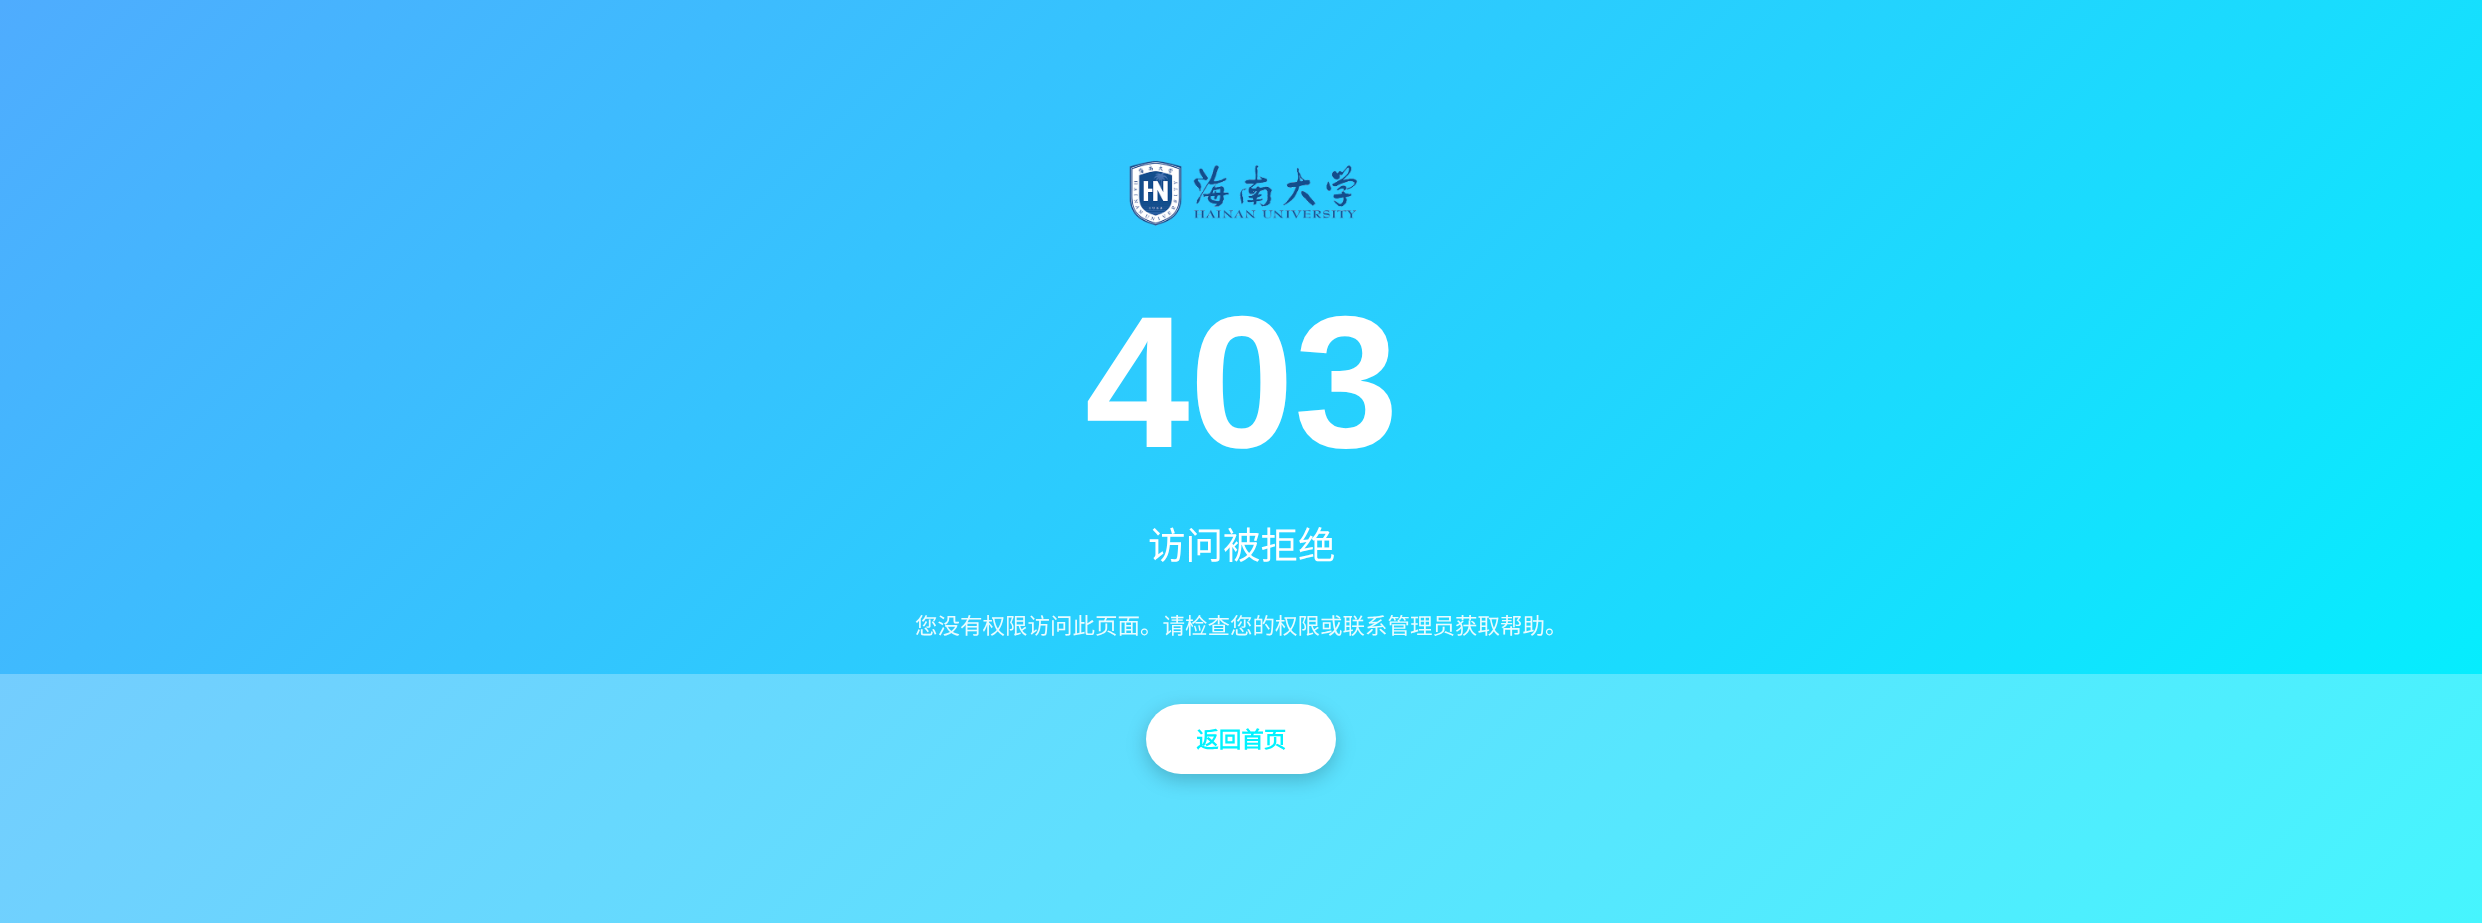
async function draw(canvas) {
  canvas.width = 2482
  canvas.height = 923
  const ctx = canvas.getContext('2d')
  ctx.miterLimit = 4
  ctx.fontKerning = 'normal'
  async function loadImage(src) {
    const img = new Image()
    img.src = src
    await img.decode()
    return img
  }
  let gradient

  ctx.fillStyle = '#fff'
  ctx.fillRect(0, 0, 2482, 923)
  gradient = ctx.createLinearGradient(390, -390, 2093, 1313)
  gradient.addColorStop(0, '#4facfe')
  gradient.addColorStop(1, '#00f2fe')
  ctx.fillStyle = gradient
  ctx.fillRect(0, 0, 2482, 674)
  gradient = ctx.createLinearGradient(390, -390, 2093, 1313)
  gradient.addColorStop(0, '#7fc3fe')
  gradient.addColorStop(1, '#46f5fe')
  ctx.fillStyle = gradient
  ctx.fillRect(0, 674, 2482, 249)
  ctx.drawImage(await loadImage('image0.png'), 1129, 160, 229, 66)
  ctx.font = 'bold 188px Liberation Sans'
  ctx.fillStyle = '#fff'
  ctx.fillText('403', 1085, 447)
  ctx.font = '37.5px Noto Sans CJK SC'
  ctx.fillText('访问被拒绝', 1148, 559)
  ctx.font = '22.5px Noto Sans CJK SC'
  ctx.fillStyle = '#e9fbff'
  ctx.fillText('您没有权限访问此页面。请检查您的权限或联系管理员获取帮助。', 915, 634)
  ctx.fillStyle = '#00000033'
  ctx.filter = 'blur(9.5px)'
  ctx.beginPath()
  ctx.roundRect(1146, 710, 190, 70, 35)
  ctx.fill()
  ctx.filter = 'none'
  ctx.fillStyle = '#fff'
  ctx.beginPath()
  ctx.roundRect(1146, 704, 190, 70, 35)
  ctx.fill()
  ctx.font = 'bold 22.5px Noto Sans CJK SC'
  ctx.fillStyle = '#00f2fe'
  ctx.fillText('返回首页', 1196, 748)
}

draw(document.querySelector('canvas'))
